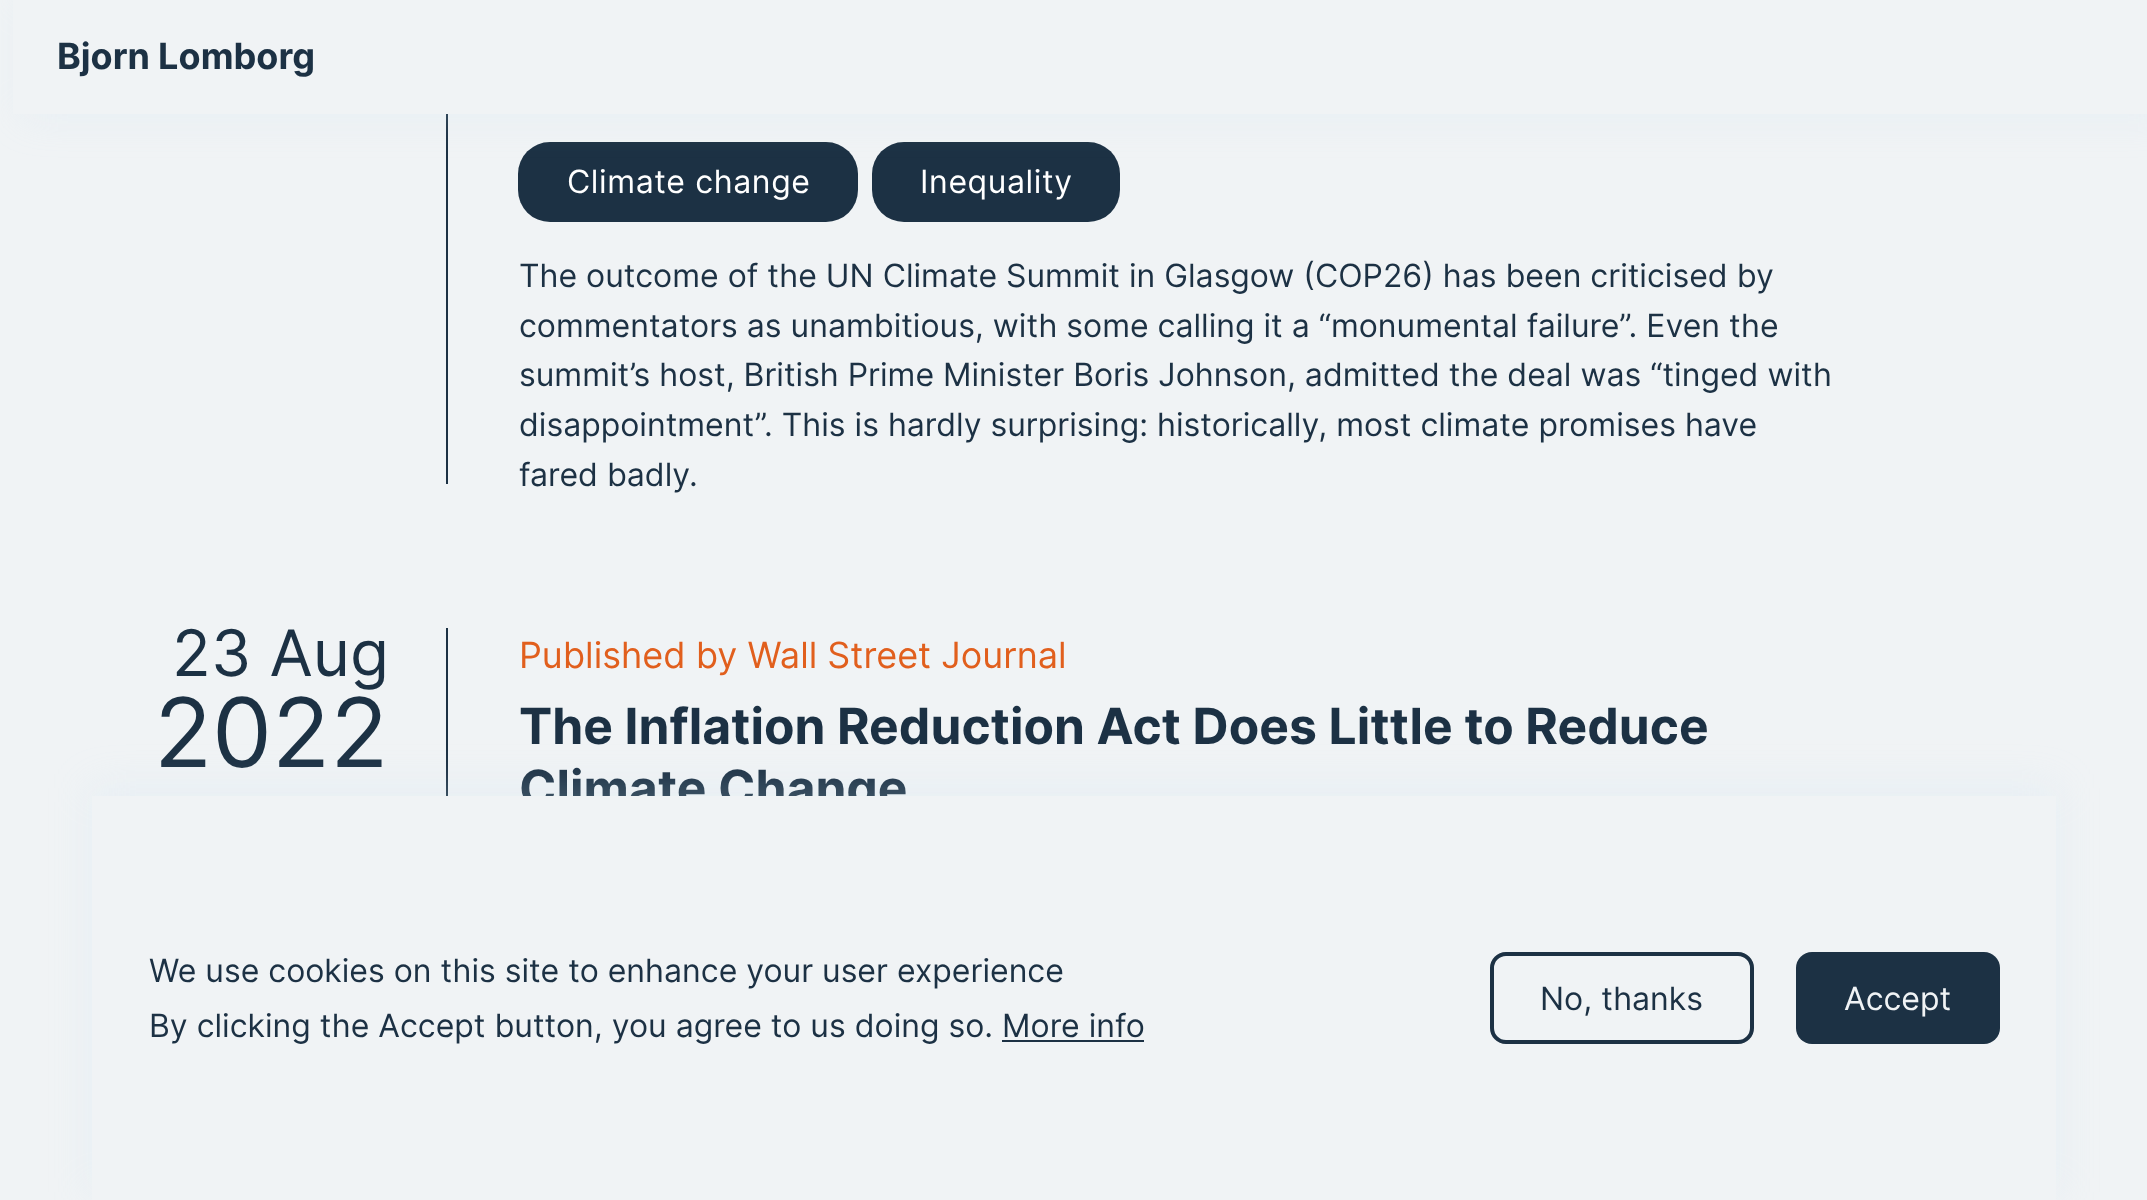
async function draw(canvas) {
  canvas.width = 2147
  canvas.height = 1200
  const ctx = canvas.getContext('2d')
  ctx.miterLimit = 4
  ctx.fontKerning = 'normal'

  ctx.fillStyle = '#f0f3f5'
  ctx.fillRect(0, 0, 2147, 1200)
  ctx.fillStyle = '#1c3144'
  ctx.fillRect(446, 114, 2, 370)
  ctx.beginPath()
  ctx.roundRect(518, 142, 340, 80, 32)
  ctx.fill()
  ctx.beginPath()
  ctx.roundRect(872, 142, 248, 80, 32)
  ctx.fill()
  ctx.fillStyle = '#cce5f240'
  ctx.filter = 'blur(20px)'
  ctx.beginPath()
  ctx.rect(24, 0, 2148, 114)
  ctx.fill()
  ctx.filter = 'none'
  ctx.fillStyle = '#f0f3f5'
  ctx.fillRect(13, 0, 2134, 114)
  ctx.font = 'bold 36px Inter'
  ctx.fillStyle = '#1c3144'
  ctx.fillText('Bjorn Lomborg', 57, 69)
  ctx.letterSpacing = '0.6px'
  ctx.font = '32px Inter'
  ctx.fillStyle = '#fff'
  ctx.fillText('Climate change', 567, 193)
  ctx.fillText('Inequality', 920, 193)
  ctx.letterSpacing = '0px'
  ctx.fillStyle = '#1c3144'
  ctx.fillText('The outcome of the UN Climate Summit in Glasgow (COP26) has been criticised by', 519, 287)
  ctx.fillText('commentators as unambitious, with some calling it a “monumental failure”. Even the', 519, 337)
  ctx.fillText('summit’s host, British Prime Minister Boris Johnson, admitted the deal was “tinged with', 519, 386)
  ctx.fillText('disappointment”. This is hardly surprising: historically, most climate promises have', 519, 436)
  ctx.fillText('fared badly.', 519, 486)
  ctx.fillRect(446, 628, 2, 168)
  ctx.font = '64px Inter'
  ctx.fillText('23 Aug', 172, 676)
  ctx.font = '96px Inter'
  ctx.fillText('2022', 154, 767)
  ctx.font = '36px Inter'
  ctx.fillStyle = '#e15f1d'
  ctx.fillText('Published by Wall Street Journal', 519, 668)
  ctx.font = 'bold 49.75px Inter'
  ctx.fillStyle = '#1c3144'
  ctx.fillText('The Inflation Reduction Act Does Little to Reduce', 519, 744)
  ctx.fillText('Climate Change', 519, 806)
  ctx.fillStyle = '#cce5f240'
  ctx.filter = 'blur(20px)'
  ctx.beginPath()
  ctx.rect(92, 788, 1964, 404)
  ctx.fill()
  ctx.filter = 'none'
  ctx.fillStyle = '#f0f3f5'
  ctx.fillRect(92, 796, 1964, 404)
  ctx.font = '32px Inter'
  ctx.fillStyle = '#1c3144'
  ctx.fillText('We use cookies on this site to enhance your user experience', 149, 982)
  ctx.fillText('By clicking the Accept button, you agree to us doing so. More info', 149, 1037)
  ctx.fillRect(1002, 1040, 142, 2)
  ctx.beginPath()
  ctx.roundRect(1491, 953, 262, 90, 15)
  ctx.strokeStyle = '#dcdcdc'
  ctx.lineWidth = 2
  ctx.stroke()
  ctx.beginPath()
  ctx.roundRect(1492, 954, 260, 88, 14)
  ctx.strokeStyle = '#1c3144'
  ctx.lineWidth = 4
  ctx.stroke()
  ctx.fillText('No, thanks', 1540, 1010)
  ctx.beginPath()
  ctx.roundRect(1796, 952, 204, 92, 16)
  ctx.fill()
  ctx.fillStyle = '#f0f3f5'
  ctx.fillText('Accept', 1844, 1010)
}

draw(document.querySelector('canvas'))
